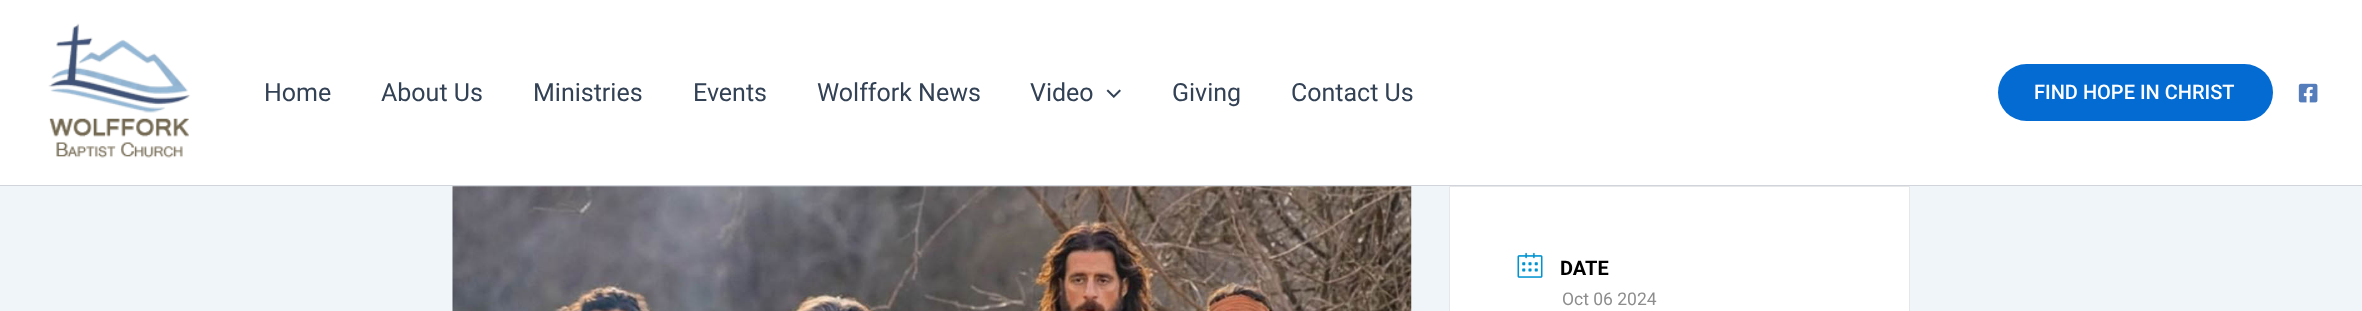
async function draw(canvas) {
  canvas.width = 2362
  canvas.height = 311
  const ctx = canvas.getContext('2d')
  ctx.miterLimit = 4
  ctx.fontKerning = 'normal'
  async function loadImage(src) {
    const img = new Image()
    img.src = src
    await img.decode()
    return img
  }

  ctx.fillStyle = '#f0f5fa'
  ctx.fillRect(0, 0, 2362, 311)
  ctx.fillStyle = '#fff'
  ctx.fillRect(0, 0, 2362, 185)
  ctx.fillStyle = '#d1d5db'
  ctx.fillRect(0, 185, 2362, 1)
  ctx.drawImage(await loadImage('image0.png'), 48, 23, 143, 135)
  ctx.font = '25px Roboto'
  ctx.fillStyle = '#334155'
  ctx.fillText('Home', 264, 101)
  ctx.fillText('About Us', 381, 101)
  ctx.fillText('Ministries', 533, 101)
  ctx.fillText('Events', 693, 101)
  ctx.fillText('Wolffork News', 817, 101)
  ctx.fillText('Video', 1030, 101)
  ctx.drawImage(await loadImage('image1.png'), 1106, 89, 15, 9)
  ctx.fillText('Giving', 1172, 101)
  ctx.fillText('Contact Us', 1291, 101)
  ctx.fillStyle = '#046bd2'
  ctx.beginPath()
  ctx.roundRect(1998, 64, 275, 57, 28.5)
  ctx.fill()
  ctx.font = '500 20px Roboto'
  ctx.fillStyle = '#fff'
  ctx.fillText('FIND HOPE IN CHRIST', 2034, 99)
  ctx.drawImage(await loadImage('image2.png'), 2298, 83, 20, 20)
  ctx.drawImage(await loadImage('image3.png'), 452, 186, 960, 125)
  ctx.beginPath()
  ctx.rect(1449.5, 186.5, 460, 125)
  ctx.fill()
  ctx.strokeStyle = '#e6e7e8'
  ctx.stroke()
  ctx.drawImage(await loadImage('image4.png'), 1517, 252, 26, 26)
  ctx.font = 'bold 20px Roboto'
  ctx.fillStyle = '#000'
  ctx.fillText('DATE', 1560, 275)
  ctx.font = '17.5px Roboto'
  ctx.fillStyle = '#8d8d8d'
  ctx.fillText('Oct 06 2024', 1562, 305)
}

draw(document.querySelector('canvas'))
